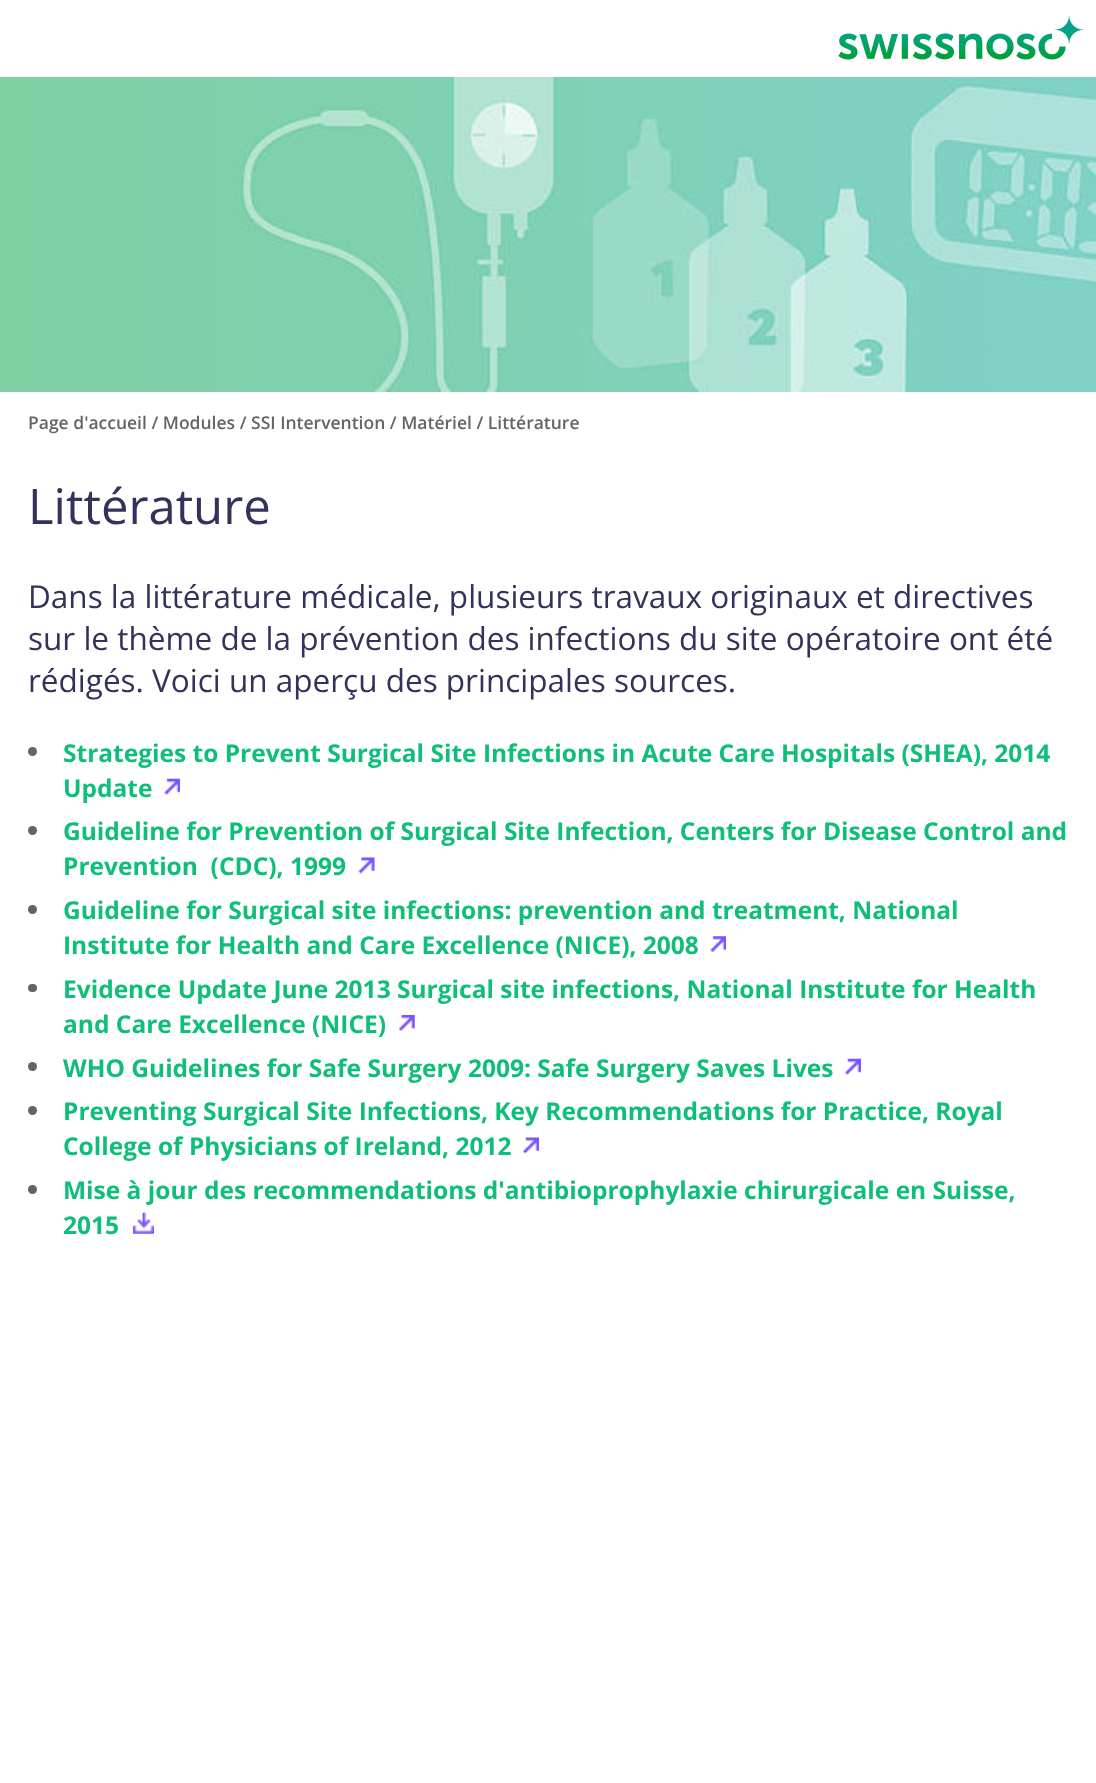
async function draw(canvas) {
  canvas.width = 1096
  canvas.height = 1783
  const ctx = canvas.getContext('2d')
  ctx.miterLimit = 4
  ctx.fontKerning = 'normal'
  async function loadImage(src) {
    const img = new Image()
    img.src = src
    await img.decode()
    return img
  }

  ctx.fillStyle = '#fff'
  ctx.fillRect(0, 0, 1096, 1783)
  ctx.drawImage(await loadImage('image0.png'), 838, 16, 245, 44)
  ctx.drawImage(await loadImage('image1.png'), 0, 77, 1096, 315)
  ctx.font = '600 17.5px Open Sans'
  ctx.fillStyle = '#646464'
  ctx.fillText('Page d\'accueil / Modules / SSI Intervention / Matériel / Littérature', 28, 429)
  ctx.font = '49px Open Sans'
  ctx.fillStyle = '#32325a'
  ctx.fillText('Littérature', 28, 524)
  ctx.font = '31.5px Open Sans'
  ctx.fillText('Dans la littérature médicale, plusieurs travaux originaux et directives', 28, 608)
  ctx.fillText('sur le thème de la prévention des infections du site opératoire ont été', 28, 650)
  ctx.fillText('rédigés. Voici un aperçu des principales sources.', 28, 692)
  ctx.fillStyle = '#646464'
  ctx.beginPath()
  ctx.arc(32.5, 751.5, 4.5, 0, 2 * Math.PI)
  ctx.fill()
  ctx.font = 'bold 24.5px Open Sans'
  ctx.fillStyle = '#0fbe78'
  ctx.fillText('Strategies to Prevent Surgical Site Infections in Acute Care Hospitals (SHEA), 2014', 63, 762)
  ctx.fillText('Update', 63, 797)
  ctx.drawImage(await loadImage('image2.png'), 164, 778, 16, 17)
  ctx.fillStyle = '#646464'
  ctx.beginPath()
  ctx.arc(32.5, 830.5, 4.5, 0, 2 * Math.PI)
  ctx.fill()
  ctx.fillStyle = '#0fbe78'
  ctx.fillText('Guideline for Prevention of Surgical Site Infection, Centers for Disease Control and', 63, 840)
  ctx.fillText('Prevention  (CDC), 1999', 63, 875)
  ctx.drawImage(await loadImage('image3.png'), 358, 857, 17, 17)
  ctx.fillStyle = '#646464'
  ctx.beginPath()
  ctx.arc(32.5, 909.5, 4.5, 0, 2 * Math.PI)
  ctx.fill()
  ctx.fillStyle = '#0fbe78'
  ctx.fillText('Guideline for Surgical site infections: prevention and treatment, National', 63, 919)
  ctx.fillText('Institute for Health and Care Excellence (NICE), 2008', 63, 954)
  ctx.drawImage(await loadImage('image4.png'), 710, 936, 16, 16)
  ctx.fillStyle = '#646464'
  ctx.beginPath()
  ctx.roundRect(28, 984, 9, 8, 4)
  ctx.fill()
  ctx.fillStyle = '#0fbe78'
  ctx.fillText('Evidence Update June 2013 Surgical site infections, National Institute for Health', 63, 998)
  ctx.fillText('and Care Excellence (NICE)', 63, 1033)
  ctx.drawImage(await loadImage('image5.png'), 399, 1015, 16, 16)
  ctx.fillStyle = '#646464'
  ctx.beginPath()
  ctx.arc(32.5, 1066.5, 4.5, 0, 2 * Math.PI)
  ctx.fill()
  ctx.fillStyle = '#0fbe78'
  ctx.fillText('WHO Guidelines for Safe Surgery 2009: Safe Surgery Saves Lives', 63, 1077)
  ctx.drawImage(await loadImage('image6.png'), 845, 1058, 16, 17)
  ctx.fillStyle = '#646464'
  ctx.beginPath()
  ctx.arc(32.5, 1110.5, 4.5, 0, 2 * Math.PI)
  ctx.fill()
  ctx.fillStyle = '#0fbe78'
  ctx.fillText('Preventing Surgical Site Infections, Key Recommendations for Practice, Royal', 63, 1120)
  ctx.fillText('College of Physicians of Ireland, 2012', 63, 1155)
  ctx.drawImage(await loadImage('image7.png'), 523, 1137, 16, 17)
  ctx.fillStyle = '#646464'
  ctx.beginPath()
  ctx.arc(32.5, 1189.5, 4.5, 0, 2 * Math.PI)
  ctx.fill()
  ctx.fillStyle = '#0fbe78'
  ctx.fillText('Mise à jour des recommendations d\'antibioprophylaxie chirurgicale en Suisse,', 63, 1199)
  ctx.fillText('2015', 63, 1234)
  ctx.drawImage(await loadImage('image8.png'), 133, 1212, 21, 22)
}

draw(document.querySelector('canvas'))
